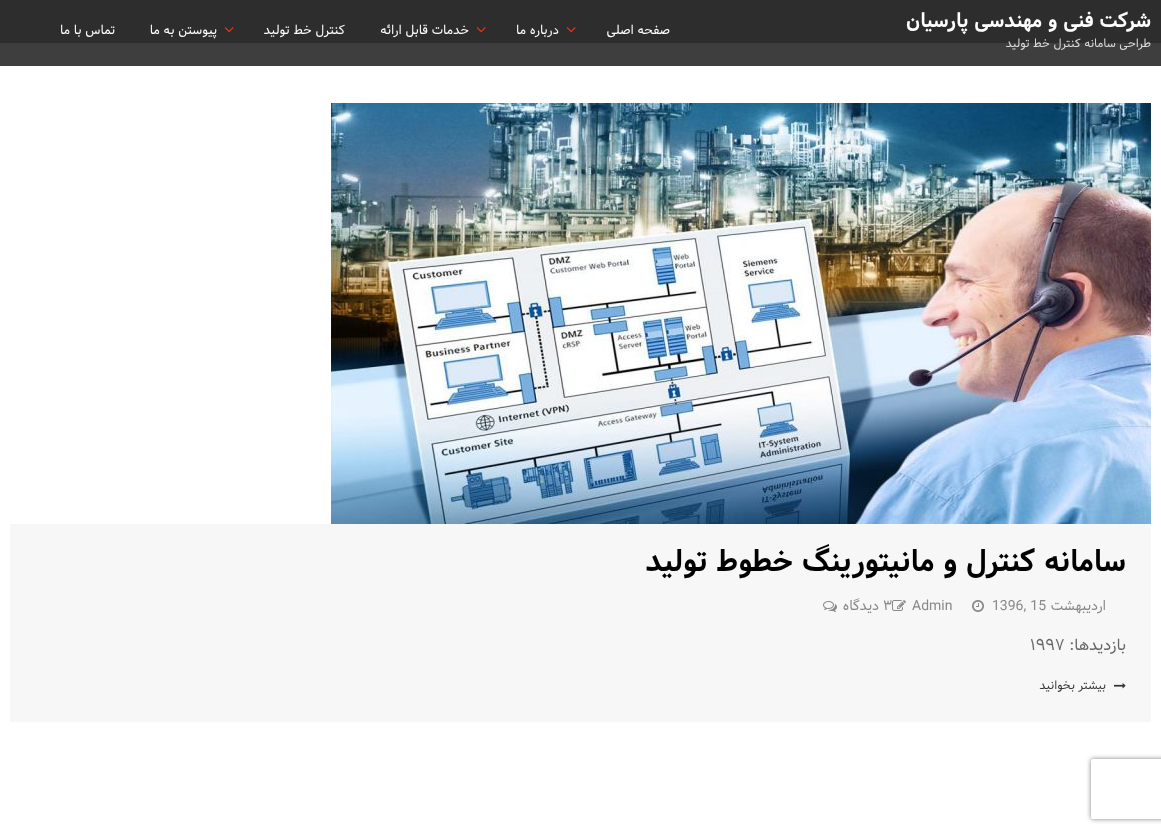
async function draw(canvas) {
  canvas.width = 1161
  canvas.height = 833
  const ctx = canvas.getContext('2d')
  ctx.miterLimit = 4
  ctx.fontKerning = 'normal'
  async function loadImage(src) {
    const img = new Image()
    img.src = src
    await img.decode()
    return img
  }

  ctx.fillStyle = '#fff'
  ctx.fillRect(0, 0, 1161, 833)
  ctx.fillStyle = '#3e3e3e'
  ctx.fillRect(0, 43, 1161, 23)
  ctx.fillStyle = '#2d2d2d'
  ctx.fillRect(0, 0, 1161, 43)
  ctx.direction = 'rtl'
  ctx.font = 'bold 20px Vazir'
  ctx.fillStyle = '#fff'
  ctx.fillText('شرکت فنی و مهندسی پارسیان', 1151, 27)
  ctx.font = '12px Vazir'
  ctx.fillStyle = '#ddd'
  ctx.fillText('طراحی سامانه کنترل خط تولید', 1151, 47)
  ctx.font = '13px Vazir'
  ctx.fillStyle = '#fff'
  ctx.fillText('صفحه اصلی', 670, 34)
  ctx.drawImage(await loadImage('image0.png'), 566, 27, 10, 6)
  ctx.fillText('درباره ما', 559, 34)
  ctx.drawImage(await loadImage('image0.png'), 476, 27, 10, 6)
  ctx.fillText('خدمات قابل ارائه', 469, 34)
  ctx.fillText('کنترل خط تولید', 345, 34)
  ctx.drawImage(await loadImage('image0.png'), 224, 27, 10, 6)
  ctx.fillText('پیوستن به ما', 217, 34)
  ctx.fillText('تماس با ما', 115, 34)
  ctx.drawImage(await loadImage('image1.png'), 331, 103, 820, 421)
  ctx.fillStyle = '#f7f7f7'
  ctx.fillRect(10, 524, 1141, 198)
  ctx.font = 'bold 30px Vazir'
  ctx.fillStyle = '#000'
  ctx.fillText('سامانه کنترل و مانیتورینگ خطوط تولید', 1126, 571)
  ctx.font = '14px Vazir'
  ctx.fillStyle = '#888'
  ctx.fillText('اردیبهشت', 1106, 610)
  ctx.direction = 'ltr'
  ctx.fillText('1396, 15', 992, 610)
  ctx.drawImage(await loadImage('image2.png'), 972, 600, 12, 12)
  ctx.fillText('Admin', 912, 610)
  ctx.drawImage(await loadImage('image3.png'), 892, 600, 14, 11)
  ctx.fillText('۳', 883, 610)
  ctx.direction = 'rtl'
  ctx.fillText('دیدگاه', 879, 610)
  ctx.drawImage(await loadImage('image4.png'), 823, 601, 14, 11)
  ctx.font = '16px Vazir'
  ctx.fillStyle = '#666'
  ctx.fillText('بازدیدها:', 1126, 650)
  ctx.direction = 'ltr'
  ctx.fillText('۱۹۹۷', 1030, 650)
  ctx.drawImage(await loadImage('image5.png'), 1114, 683, 12, 6)
  ctx.direction = 'rtl'
  ctx.font = '12px Vazir'
  ctx.fillStyle = '#333'
  ctx.fillText('بیشتر بخوانید', 1106, 689)
  ctx.save()
  ctx.beginPath()
  ctx.moveTo(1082, 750)
  ctx.lineTo(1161, 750)
  ctx.lineTo(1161, 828)
  ctx.lineTo(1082, 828)
  ctx.closePath()
  ctx.moveTo(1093, 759)
  ctx.lineTo(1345, 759)
  ctx.bezierCurveTo(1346, 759, 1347, 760, 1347, 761)
  ctx.lineTo(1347, 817)
  ctx.bezierCurveTo(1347, 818, 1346, 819, 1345, 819)
  ctx.lineTo(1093, 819)
  ctx.bezierCurveTo(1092, 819, 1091, 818, 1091, 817)
  ctx.lineTo(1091, 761)
  ctx.bezierCurveTo(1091, 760, 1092, 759, 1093, 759)
  ctx.closePath()
  ctx.clip('evenodd')
  ctx.fillStyle = '#808080'
  ctx.filter = 'blur(2.5px)'
  ctx.beginPath()
  ctx.roundRect(1091, 759, 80, 60, 2)
  ctx.fill()
  ctx.filter = 'none'
  ctx.restore()
}

draw(document.querySelector('canvas'))
